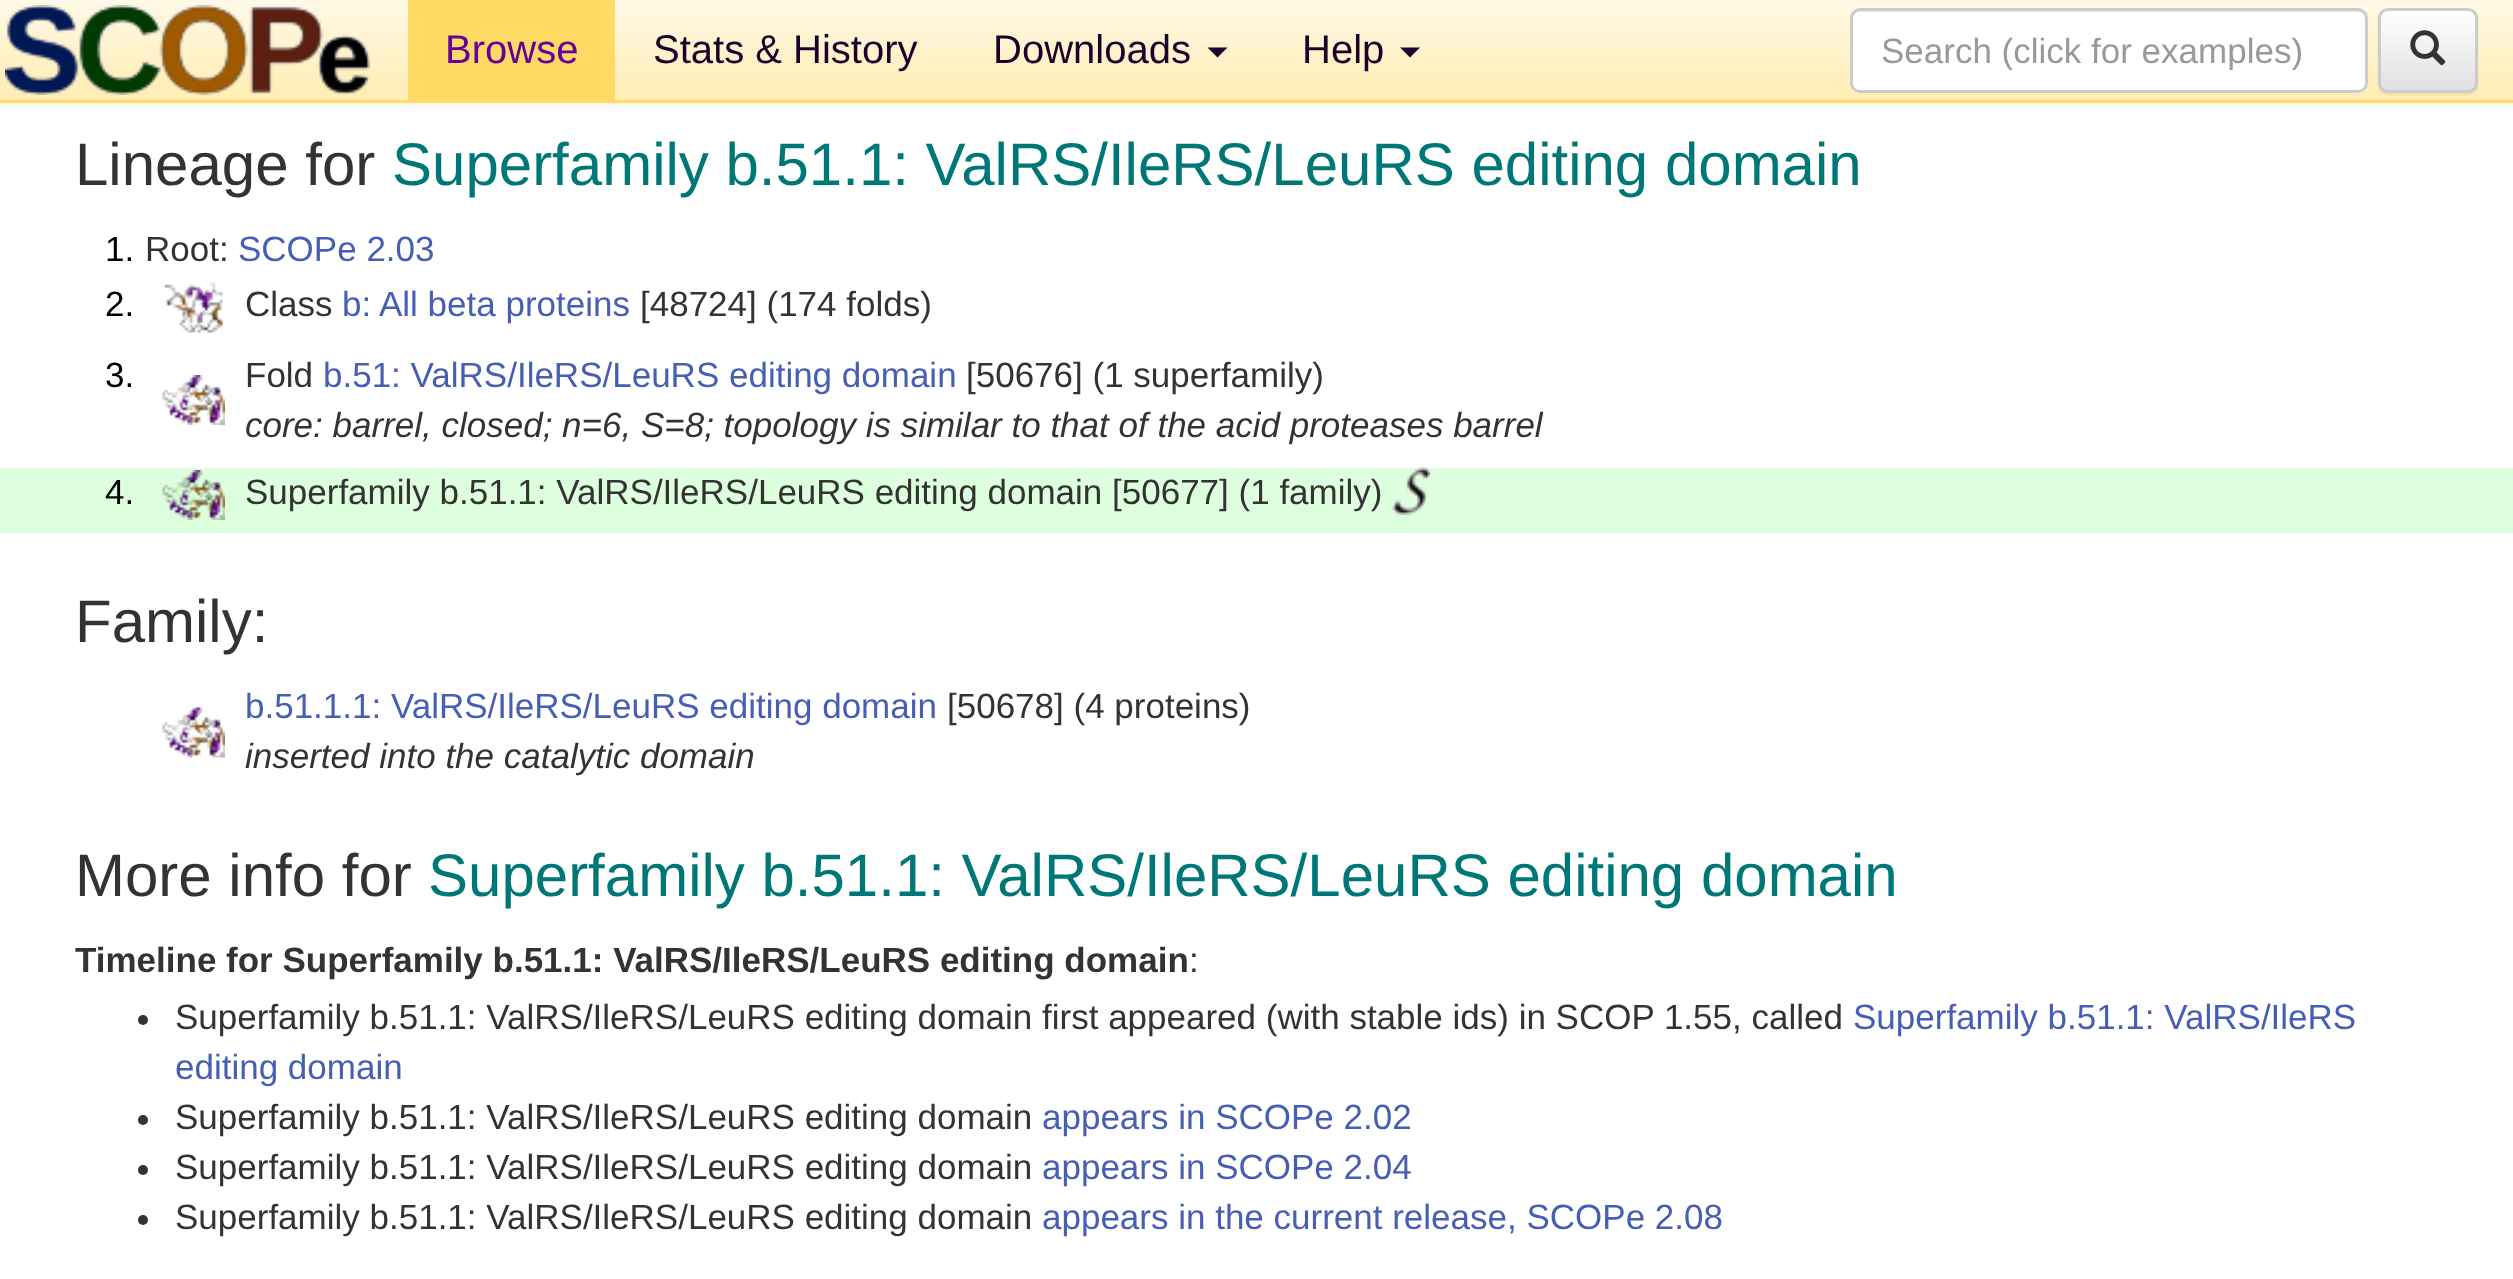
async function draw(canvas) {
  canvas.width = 2513
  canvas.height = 1279
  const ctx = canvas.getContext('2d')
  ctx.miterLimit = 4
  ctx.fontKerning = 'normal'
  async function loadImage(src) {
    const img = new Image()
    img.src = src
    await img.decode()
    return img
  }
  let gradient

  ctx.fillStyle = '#fff'
  ctx.fillRect(0, 0, 2513, 1279)
  ctx.fillStyle = '#00000012'
  ctx.filter = 'blur(6px)'
  ctx.beginPath()
  ctx.rect(0, 3, 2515, 102)
  ctx.fill()
  ctx.filter = 'none'
  gradient = ctx.createLinearGradient(1258, 0, 1258, 100)
  gradient.addColorStop(0, '#fff9e6')
  gradient.addColorStop(1, '#ffedb3')
  ctx.fillStyle = gradient
  ctx.fillRect(0, 3, 2513, 97)
  ctx.fillStyle = '#fffae9'
  ctx.fillRect(0, 0, 2513, 3)
  ctx.fillStyle = '#ffda65'
  ctx.fillRect(0, 100, 2513, 3)
  ctx.drawImage(await loadImage('image0.png'), 5, 5, 365, 90)
  ctx.fillRect(408, 0, 207, 100)
  ctx.font = '40px Liberation Sans'
  ctx.fillStyle = '#609'
  ctx.fillText('Browse', 445, 63)
  ctx.fillStyle = '#1d002b'
  ctx.fillText('Stats & History', 653, 63)
  ctx.fillText('Downloads', 993, 63)
  ctx.beginPath()
  ctx.moveTo(1207.5, 47.5)
  ctx.lineTo(1227.5, 47.5)
  ctx.lineTo(1217.5, 57.5)
  ctx.closePath()
  ctx.fill()
  ctx.fillText('Help', 1302, 63)
  ctx.beginPath()
  ctx.moveTo(1400, 47.5)
  ctx.lineTo(1420, 47.5)
  ctx.lineTo(1410, 57.5)
  ctx.closePath()
  ctx.fill()
  ctx.fillStyle = '#fff'
  ctx.beginPath()
  ctx.roundRect(1850, 8, 518, 85, 10)
  ctx.fill()
  ctx.fillStyle = '#ececec'
  ctx.beginPath()
  ctx.moveTo(1860, 12)
  ctx.lineTo(2358, 12)
  ctx.bezierCurveTo(2362, 12, 2365, 16, 2365, 20)
  ctx.lineTo(2365, 18)
  ctx.bezierCurveTo(2365, 14, 2361, 10, 2357, 10)
  ctx.lineTo(1861, 10)
  ctx.bezierCurveTo(1857, 10, 1854, 13, 1853, 16)
  ctx.bezierCurveTo(1855, 14, 1857, 12, 1860, 12)
  ctx.closePath()
  ctx.fill()
  ctx.beginPath()
  ctx.roundRect(1851.5, 9.5, 515, 82, 8.5)
  ctx.strokeStyle = '#ccc'
  ctx.lineWidth = 3
  ctx.stroke()
  ctx.save()
  ctx.beginPath()
  ctx.rect(1883, 30, 452, 40)
  ctx.clip()
  ctx.font = '35px Liberation Sans'
  ctx.fillStyle = '#999'
  ctx.fillText('Search (click for examples)', 1881, 63)
  ctx.restore()
  ctx.fillStyle = '#00000012'
  ctx.filter = 'blur(1px)'
  ctx.beginPath()
  ctx.roundRect(2378, 10, 100, 85, 10)
  ctx.fill()
  ctx.filter = 'none'
  ctx.save()
  ctx.beginPath()
  ctx.roundRect(2378, 8, 100, 85, 10)
  ctx.clip()
  gradient = ctx.createLinearGradient(2428, 10, 2428, 90)
  gradient.addColorStop(0, '#fff')
  gradient.addColorStop(1, '#e0e0e0')
  ctx.fillStyle = gradient
  ctx.fillRect(2378, 10, 100, 80)
  ctx.restore()
  ctx.fillStyle = '#fff'
  ctx.beginPath()
  ctx.moveTo(2388, 12)
  ctx.lineTo(2468, 12)
  ctx.bezierCurveTo(2472, 12, 2475, 16, 2475, 20)
  ctx.bezierCurveTo(2475, 7, 2464, 10, 2454, 10)
  ctx.lineTo(2401, 10)
  ctx.bezierCurveTo(2391, 10, 2380, 7, 2380, 20)
  ctx.bezierCurveTo(2380, 16, 2383, 12, 2388, 12)
  ctx.closePath()
  ctx.fill()
  ctx.beginPath()
  ctx.roundRect(2379.5, 9.5, 97, 82, 8.5)
  ctx.stroke()
  ctx.drawImage(await loadImage('image1.png'), 2410, 30, 36, 36)
  ctx.font = '60px Liberation Sans'
  ctx.fillStyle = '#333'
  ctx.fillText('Lineage for', 75, 185)
  ctx.fillStyle = '#077'
  ctx.fillText('Superfamily b.51.1: ValRS/IleRS/LeuRS editing domain', 392, 185)
  ctx.font = '35px Liberation Sans'
  ctx.fillStyle = '#000'
  ctx.fillText('1.', 105, 261)
  ctx.fillStyle = '#333'
  ctx.fillText('Root:', 145, 261)
  ctx.fillStyle = '#465eb4'
  ctx.fillText('SCOPe 2.03', 238, 261)
  ctx.fillStyle = '#000'
  ctx.fillText('2.', 105, 316)
  ctx.drawImage(await loadImage('image2.png'), 165, 282, 58, 51)
  ctx.fillStyle = '#333'
  ctx.fillText('Class', 245, 316)
  ctx.fillStyle = '#465eb4'
  ctx.fillText('b: All beta proteins', 342, 316)
  ctx.fillStyle = '#333'
  ctx.fillText('[48724] (174 folds)', 640, 316)
  ctx.fillStyle = '#000'
  ctx.fillText('3.', 105, 387)
  ctx.drawImage(await loadImage('image3.png'), 162, 375, 63, 50)
  ctx.fillStyle = '#333'
  ctx.fillText('Fold', 245, 387)
  ctx.fillStyle = '#465eb4'
  ctx.fillText('b.51: ValRS/IleRS/LeuRS editing domain', 323, 387)
  ctx.fillStyle = '#333'
  ctx.fillText('[50676] (1 superfamily)', 966, 387)
  ctx.font = 'italic 35px Liberation Sans'
  ctx.fillText('core: barrel, closed; n=6, S=8; topology is similar to that of the acid proteases barrel', 245, 437)
  ctx.fillStyle = '#dfd'
  ctx.fillRect(0, 468, 2513, 65)
  ctx.font = '35px Liberation Sans'
  ctx.fillStyle = '#000'
  ctx.fillText('4.', 105, 504)
  ctx.drawImage(await loadImage('image4.png'), 162, 470, 63, 50)
  ctx.fillStyle = '#333'
  ctx.fillText('Superfamily b.51.1: ValRS/IleRS/LeuRS editing domain [50677] (1 family)', 245, 504)
  ctx.drawImage(await loadImage('image5.png'), 1392, 467, 38, 48)
  ctx.font = '60px Liberation Sans'
  ctx.fillText('Family:', 75, 642)
  ctx.drawImage(await loadImage('image6.png'), 162, 707, 63, 51)
  ctx.font = '35px Liberation Sans'
  ctx.fillStyle = '#465eb4'
  ctx.fillText('b.51.1.1: ValRS/IleRS/LeuRS editing domain', 245, 718)
  ctx.fillStyle = '#333'
  ctx.fillText('[50678] (4 proteins)', 947, 718)
  ctx.font = 'italic 35px Liberation Sans'
  ctx.fillText('inserted into the catalytic domain', 245, 768)
  ctx.font = '60px Liberation Sans'
  ctx.fillText('More info for', 75, 896)
  ctx.fillStyle = '#077'
  ctx.fillText('Superfamily b.51.1: ValRS/IleRS/LeuRS editing domain', 428, 896)
  ctx.font = 'bold 35px Liberation Sans'
  ctx.fillStyle = '#333'
  ctx.fillText('Timeline for Superfamily b.51.1: ValRS/IleRS/LeuRS editing domain', 75, 972)
  ctx.font = '35px Liberation Sans'
  ctx.fillText(':', 1189, 972)
  ctx.beginPath()
  ctx.arc(143, 1020, 5, 0, 2 * Math.PI)
  ctx.fill()
  ctx.fillText('Superfamily b.51.1: ValRS/IleRS/LeuRS editing domain first appeared (with stable ids) in SCOP 1.55, called', 175, 1029)
  ctx.fillStyle = '#465eb4'
  ctx.fillText('Superfamily b.51.1: ValRS/IleRS', 1853, 1029)
  ctx.fillText('editing domain', 175, 1079)
  ctx.fillStyle = '#333'
  ctx.beginPath()
  ctx.arc(143, 1120, 5, 0, 2 * Math.PI)
  ctx.fill()
  ctx.fillText('Superfamily b.51.1: ValRS/IleRS/LeuRS editing domain', 175, 1129)
  ctx.fillStyle = '#465eb4'
  ctx.fillText('appears in SCOPe 2.02', 1042, 1129)
  ctx.fillStyle = '#333'
  ctx.beginPath()
  ctx.arc(143, 1170, 5, 0, 2 * Math.PI)
  ctx.fill()
  ctx.fillText('Superfamily b.51.1: ValRS/IleRS/LeuRS editing domain', 175, 1179)
  ctx.fillStyle = '#465eb4'
  ctx.fillText('appears in SCOPe 2.04', 1042, 1179)
  ctx.fillStyle = '#333'
  ctx.beginPath()
  ctx.arc(143, 1220, 5, 0, 2 * Math.PI)
  ctx.fill()
  ctx.fillText('Superfamily b.51.1: ValRS/IleRS/LeuRS editing domain', 175, 1229)
  ctx.fillStyle = '#465eb4'
  ctx.fillText('appears in the current release, SCOPe 2.08', 1042, 1229)
}

draw(document.querySelector('canvas'))
